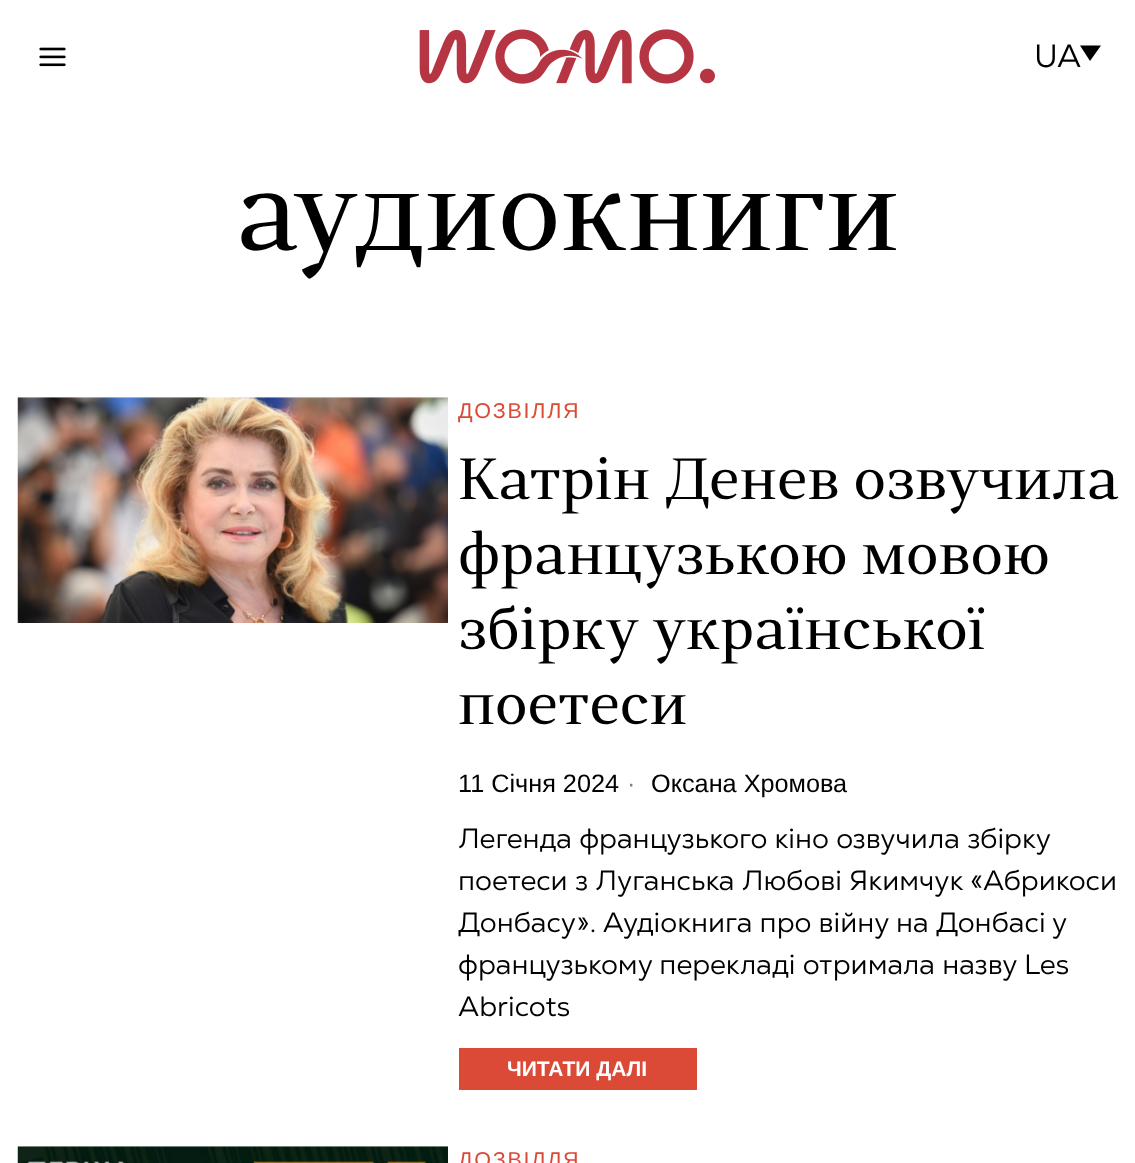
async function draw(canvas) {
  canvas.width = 1135
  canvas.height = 1163
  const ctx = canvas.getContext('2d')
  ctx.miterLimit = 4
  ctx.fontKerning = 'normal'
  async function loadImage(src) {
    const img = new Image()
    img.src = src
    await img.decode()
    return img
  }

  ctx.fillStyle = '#fff'
  ctx.fillRect(0, 0, 1135, 1163)
  ctx.drawImage(await loadImage('image0.png'), 39, 47, 27, 20)
  ctx.drawImage(await loadImage('image1.png'), 419, 29, 296, 55)
  ctx.font = '32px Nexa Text'
  ctx.fillStyle = '#000'
  ctx.fillText('UA', 1034, 67)
  ctx.beginPath()
  ctx.moveTo(1080, 45.5)
  ctx.lineTo(1101, 45.5)
  ctx.lineTo(1090, 61)
  ctx.closePath()
  ctx.fill()
  ctx.font = '112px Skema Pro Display'
  ctx.fillText('аудиокниги', 236, 250)
  ctx.drawImage(await loadImage('image2.png'), 17, 397, 431, 226)
  ctx.letterSpacing = '1.75px'
  ctx.font = '21.5px Liberation Sans'
  ctx.fillStyle = '#db4a37'
  ctx.fillText('ДОЗВІЛЛЯ', 458, 418)
  ctx.letterSpacing = '0px'
  ctx.font = '57.75px Skema Pro Display'
  ctx.fillStyle = '#000'
  ctx.fillText('Катрін Денев озвучила', 458, 499)
  ctx.fillText('французькою мовою', 458, 574)
  ctx.fillText('збірку української', 458, 649)
  ctx.fillText('поетеси', 458, 724)
  ctx.font = '25.25px Liberation Sans'
  ctx.fillText('11 Січня 2024', 458, 792)
  ctx.fillStyle = '#808080'
  ctx.fillText('·', 627, 792)
  ctx.fillStyle = '#000'
  ctx.fillText('Оксана Хромова', 651, 792)
  ctx.font = '28px Nexa Text'
  ctx.fillText('Легенда французького кіно озвучила збірку', 458, 848)
  ctx.fillText('поетеси з Луганська Любові Якимчук «Абрикоси', 458, 890)
  ctx.fillText('Донбасу». Аудіокнига про війну на Донбасі у', 458, 932)
  ctx.fillText('французькому перекладі отримала назву Les', 458, 974)
  ctx.fillText('Abricots', 458, 1016)
  ctx.fillStyle = '#db4a37'
  ctx.fillRect(459, 1048, 238, 42)
  ctx.font = 'bold 21px Liberation Sans'
  ctx.fillStyle = '#fff'
  ctx.fillText('ЧИТАТИ ДАЛІ', 507, 1076)
  ctx.drawImage(await loadImage('image3.png'), 17, 1146, 431, 17)
  ctx.letterSpacing = '1.75px'
  ctx.font = '21.5px Liberation Sans'
  ctx.fillStyle = '#db4a37'
  ctx.fillText('ДОЗВІЛЛЯ', 458, 1167)
}

draw(document.querySelector('canvas'))
